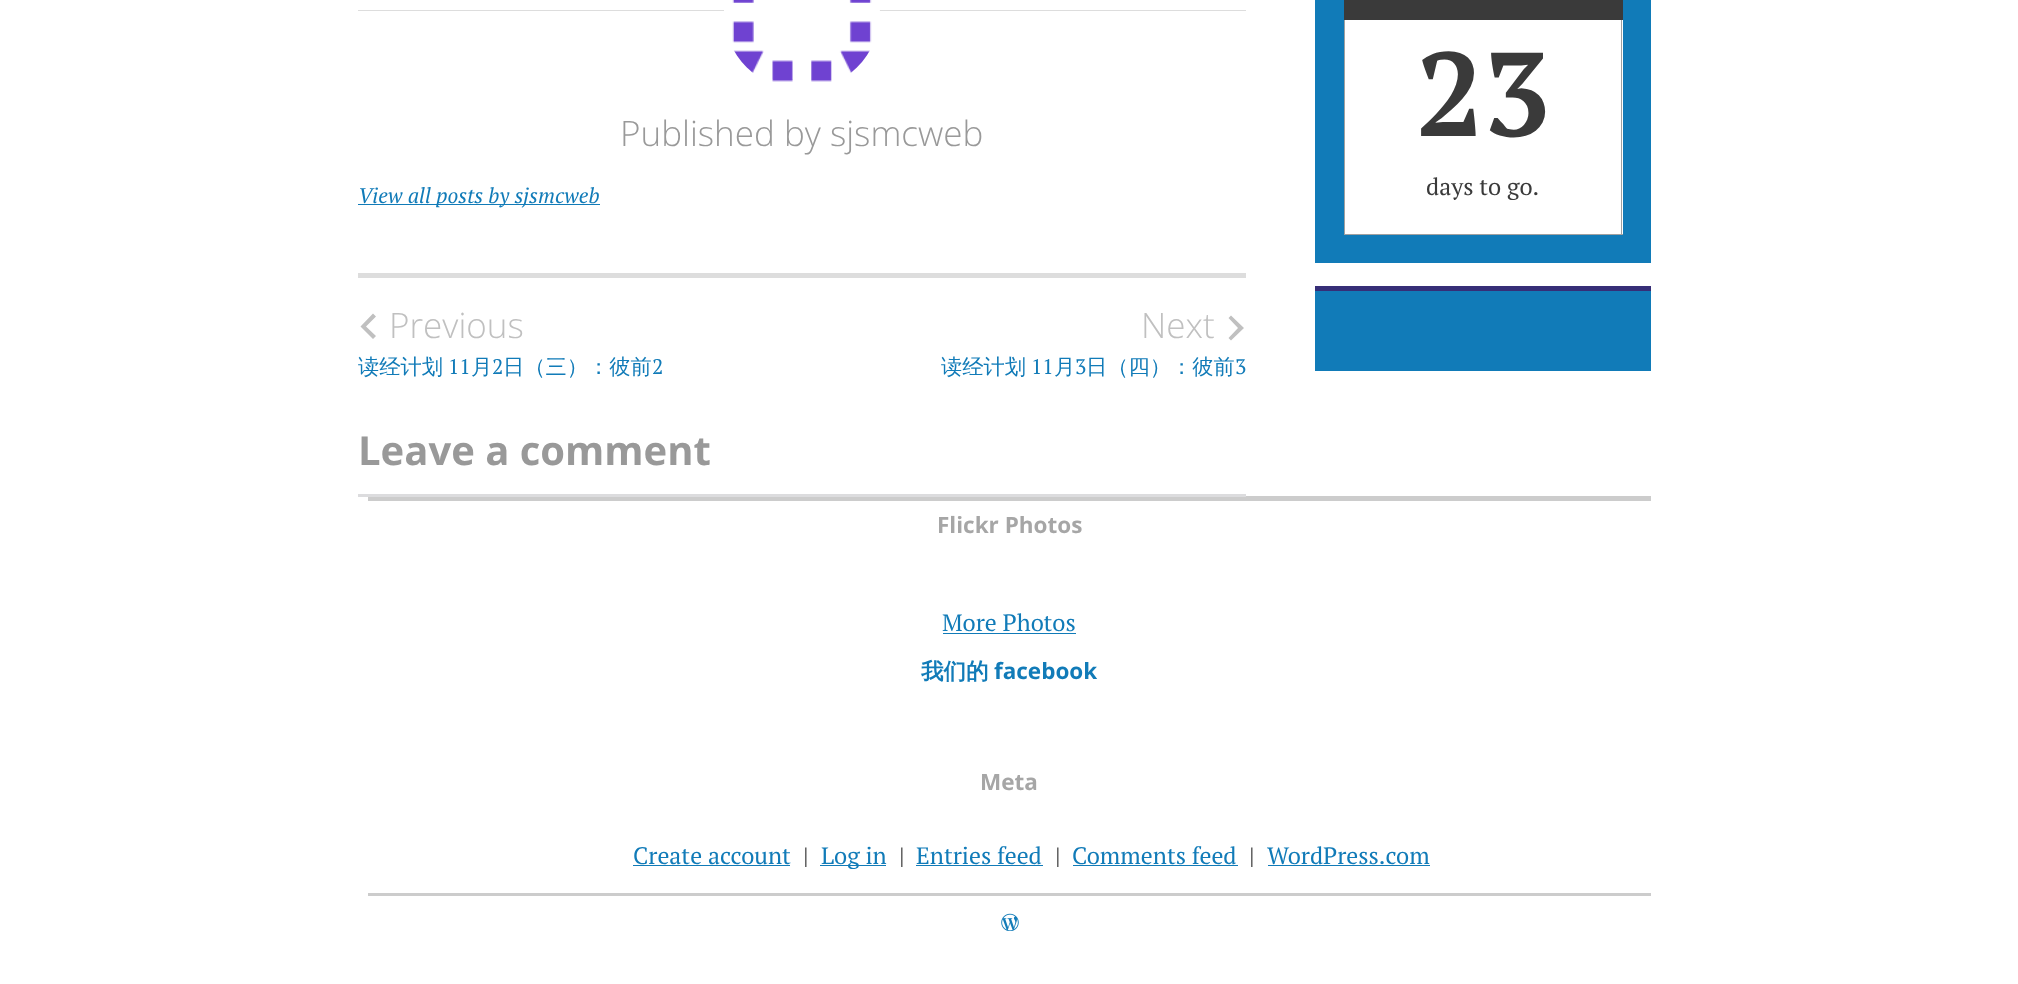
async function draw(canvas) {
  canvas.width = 2018
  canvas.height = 984
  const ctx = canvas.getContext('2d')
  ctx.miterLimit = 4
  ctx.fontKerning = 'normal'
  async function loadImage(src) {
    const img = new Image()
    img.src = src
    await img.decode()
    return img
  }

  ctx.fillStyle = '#fff'
  ctx.fillRect(0, 0, 2018, 984)
  ctx.fillStyle = '#ddd'
  ctx.fillRect(358, 273, 888, 5)
  ctx.fillRect(358, 10, 888, 1)
  ctx.drawImage(await loadImage('image0.png'), 724, 0, 156, 82)
  ctx.font = '300 35px Open Sans'
  ctx.fillStyle = '#999'
  ctx.fillText('Published by sjsmcweb', 620, 146)
  ctx.fillStyle = '#117bb8'
  ctx.fillRect(358, 204, 242, 1)
  ctx.font = 'italic 21.25px PT Serif'
  ctx.fillText('View all posts by sjsmcweb', 358, 203)
  ctx.fillStyle = '#c0c0c0'
  ctx.beginPath()
  ctx.moveTo(376, 316.5)
  ctx.lineTo(366, 326.5)
  ctx.lineTo(376, 336)
  ctx.lineTo(373, 339)
  ctx.lineTo(360.5, 326.5)
  ctx.lineTo(373, 313.5)
  ctx.closePath()
  ctx.fill()
  ctx.font = '300 35px Open Sans'
  ctx.fillText('Previous', 389, 338)
  ctx.font = '500 21.25px WenQuanYi Zen Hei'
  ctx.fillStyle = '#117bb8'
  ctx.fillText('读经计划', 358, 374)
  ctx.font = '21.25px PT Serif'
  ctx.fillText('11', 448, 374)
  ctx.font = '500 21.25px WenQuanYi Zen Hei'
  ctx.fillText('月', 471, 374)
  ctx.font = '21.25px PT Serif'
  ctx.fillText('2', 492, 374)
  ctx.font = '500 21.25px WenQuanYi Zen Hei'
  ctx.fillText('日（三）：彼前', 503, 374)
  ctx.font = '21.25px PT Serif'
  ctx.fillText('2', 652, 374)
  ctx.font = '300 35px Open Sans'
  ctx.fillStyle = '#c0c0c0'
  ctx.fillText('Next', 1141, 338)
  ctx.beginPath()
  ctx.moveTo(1228.5, 338)
  ctx.lineTo(1238, 328)
  ctx.lineTo(1228.5, 318)
  ctx.lineTo(1231, 315.5)
  ctx.lineTo(1244, 328)
  ctx.lineTo(1231, 340.5)
  ctx.closePath()
  ctx.fill()
  ctx.font = '500 21.25px WenQuanYi Zen Hei'
  ctx.fillStyle = '#117bb8'
  ctx.fillText('读经计划', 941, 374)
  ctx.font = '21.25px PT Serif'
  ctx.fillText('11', 1031, 374)
  ctx.font = '500 21.25px WenQuanYi Zen Hei'
  ctx.fillText('月', 1054, 374)
  ctx.font = '21.25px PT Serif'
  ctx.fillText('3', 1075, 374)
  ctx.font = '500 21.25px WenQuanYi Zen Hei'
  ctx.fillText('日（四）：彼前', 1086, 374)
  ctx.font = '21.25px PT Serif'
  ctx.fillText('3', 1235, 374)
  ctx.font = 'bold 40px Open Sans'
  ctx.fillStyle = '#999'
  ctx.fillText('Leave a comment', 358, 465)
  ctx.fillStyle = '#ccc'
  ctx.fillRect(368, 496, 1283, 5)
  ctx.fillStyle = '#dcdcde'
  ctx.fillRect(358, 494, 888, 3)
  ctx.fillStyle = '#117bb8'
  ctx.fillRect(1315, 0, 336, 263)
  ctx.fillStyle = '#3a3a3a'
  ctx.fillRect(1344, 0, 279, 20)
  ctx.fillStyle = '#fff'
  ctx.fillRect(1345, 20, 278, 214)
  ctx.fillStyle = '#a0a0a0'
  ctx.fillRect(1621, 20, 1, 215)
  ctx.fillRect(1344, 234, 279, 1)
  ctx.fillRect(1344, 20, 1, 215)
  ctx.font = 'bold 119px PT Serif'
  ctx.fillStyle = '#3a3a3a'
  ctx.fillText('23', 1416, 136)
  ctx.font = '23.75px PT Serif'
  ctx.fillText('days to go.', 1426, 195)
  ctx.fillStyle = '#117bb8'
  ctx.fillRect(1315, 291, 336, 80)
  ctx.fillStyle = '#362e77'
  ctx.fillRect(1315, 286, 336, 5)
  ctx.font = 'bold 22.5px Open Sans'
  ctx.fillStyle = '#a6a6a6'
  ctx.fillText('Flickr Photos', 937, 533)
  ctx.font = '23.75px PT Serif'
  ctx.fillStyle = '#117bb8'
  ctx.fillText('More Photos', 942, 631)
  ctx.fillRect(943, 633, 133, 1)
  ctx.font = 'bold 22.5px WenQuanYi Zen Hei'
  ctx.fillText('我们的', 921, 679)
  ctx.font = 'bold 22.5px Open Sans'
  ctx.fillText('facebook', 994, 679)
  ctx.fillStyle = '#a6a6a6'
  ctx.fillText('Meta', 980, 790)
  ctx.font = '23.75px PT Serif'
  ctx.fillStyle = '#117bb8'
  ctx.fillText('Create account', 633, 864)
  ctx.fillRect(633, 865, 157, 1)
  ctx.fillStyle = '#404040'
  ctx.fillText('|', 803, 864)
  ctx.fillStyle = '#117bb8'
  ctx.fillRect(820, 865, 66, 1)
  ctx.fillText('Log in', 821, 864)
  ctx.fillStyle = '#404040'
  ctx.fillText('|', 899, 864)
  ctx.fillStyle = '#117bb8'
  ctx.fillText('Entries feed', 916, 864)
  ctx.fillRect(916, 865, 127, 1)
  ctx.fillStyle = '#404040'
  ctx.fillText('|', 1055, 864)
  ctx.fillStyle = '#117bb8'
  ctx.fillText('Comments feed', 1072, 864)
  ctx.fillRect(1073, 865, 165, 1)
  ctx.fillStyle = '#404040'
  ctx.fillText('|', 1249, 864)
  ctx.fillStyle = '#117bb8'
  ctx.fillText('WordPress.com', 1267, 864)
  ctx.fillRect(1268, 865, 162, 1)
  ctx.fillStyle = '#ccc'
  ctx.fillRect(368, 893, 1283, 3)
  ctx.drawImage(await loadImage('image1.png'), 1001, 913, 18, 18)
}

draw(document.querySelector('canvas'))
